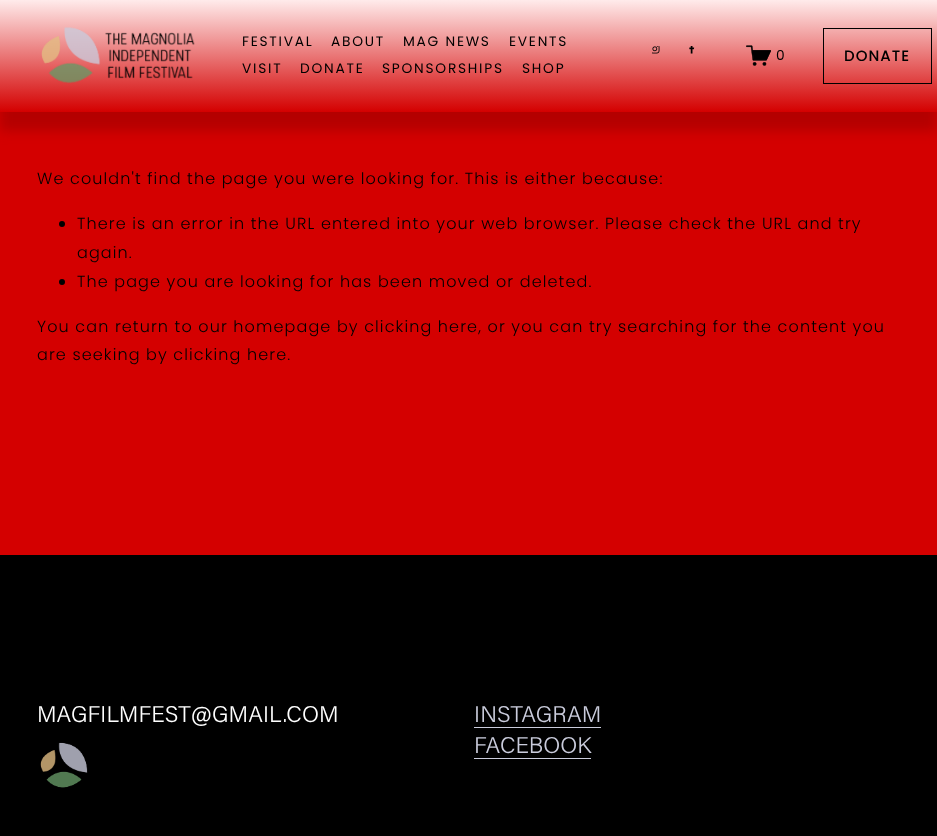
async function draw(canvas) {
  canvas.width = 937
  canvas.height = 836
  const ctx = canvas.getContext('2d')
  ctx.miterLimit = 4
  ctx.fontKerning = 'normal'
  async function loadImage(src) {
    const img = new Image()
    img.src = src
    await img.decode()
    return img
  }
  let gradient

  ctx.fillStyle = '#d40000'
  ctx.fillRect(0, 0, 937, 836)
  ctx.fillStyle = '#b40000'
  ctx.filter = 'blur(6px)'
  ctx.beginPath()
  ctx.rect(0, 19, 937, 112)
  ctx.fill()
  ctx.filter = 'none'
  gradient = ctx.createLinearGradient(469, 0, 469, 112)
  gradient.addColorStop(0, '#ffebeb')
  gradient.addColorStop(1, '#d40000')
  ctx.fillStyle = gradient
  ctx.fillRect(0, 0, 937, 112)
  ctx.drawImage(await loadImage('image0.png'), 41, 27, 154, 57)
  ctx.letterSpacing = '1.75px'
  ctx.font = '13.75px Poppins'
  ctx.fillStyle = '#000'
  ctx.fillText('FESTIVAL', 242, 46)
  ctx.fillText('ABOUT', 331, 46)
  ctx.fillText('MAG NEWS', 403, 46)
  ctx.fillText('EVENTS', 509, 46)
  ctx.fillText('VISIT', 242, 73)
  ctx.fillText('DONATE', 300, 73)
  ctx.fillText('SPONSORSHIPS', 382, 73)
  ctx.fillText('SHOP', 522, 73)
  ctx.drawImage(await loadImage('image1.png'), 652, 46, 8, 8)
  ctx.drawImage(await loadImage('image2.png'), 689, 46, 6, 8)
  ctx.drawImage(await loadImage('image3.png'), 746, 45, 25, 21)
  ctx.fillText('0', 776, 60)
  ctx.strokeStyle = '#000'
  ctx.strokeRect(823.5, 28.5, 108, 55)
  ctx.letterSpacing = '1px'
  ctx.font = '500 15px Poppins'
  ctx.fillText('DONATE', 844, 61)
  ctx.letterSpacing = '1.12px'
  ctx.font = '300 16px Poppins'
  ctx.fillText('We couldn\'t find the page you were looking for. This is either because:', 37, 184)
  ctx.beginPath()
  ctx.arc(62, 224, 3, 0, 2 * Math.PI)
  ctx.fill()
  ctx.fillText('There is an error in the URL entered into your web browser. Please check the URL and try', 77, 229)
  ctx.fillText('again.', 77, 258)
  ctx.beginPath()
  ctx.arc(62, 282, 3, 0, 2 * Math.PI)
  ctx.fill()
  ctx.fillText('The page you are looking for has been moved or deleted.', 77, 287)
  ctx.fillText('You can return to our homepage by clicking here, or you can try searching for the content you', 37, 332)
  ctx.fillText('are seeking by clicking here.', 37, 360)
  ctx.fillRect(0, 555, 937, 281)
  ctx.letterSpacing = '0px'
  ctx.font = '300 22.75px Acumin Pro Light'
  ctx.fillStyle = '#fff'
  ctx.fillText('MAGFILMFEST@GMAIL.COM', 37, 722)
  ctx.fillStyle = '#caccdc'
  ctx.fillText('INSTAGRAM', 474, 722)
  ctx.fillRect(474, 727, 127, 1)
  ctx.fillText('FACEBOOK', 474, 753)
  ctx.fillRect(474, 758, 117, 1)
  ctx.drawImage(await loadImage('image4.png'), 40, 742, 48, 46)
}

draw(document.querySelector('canvas'))
